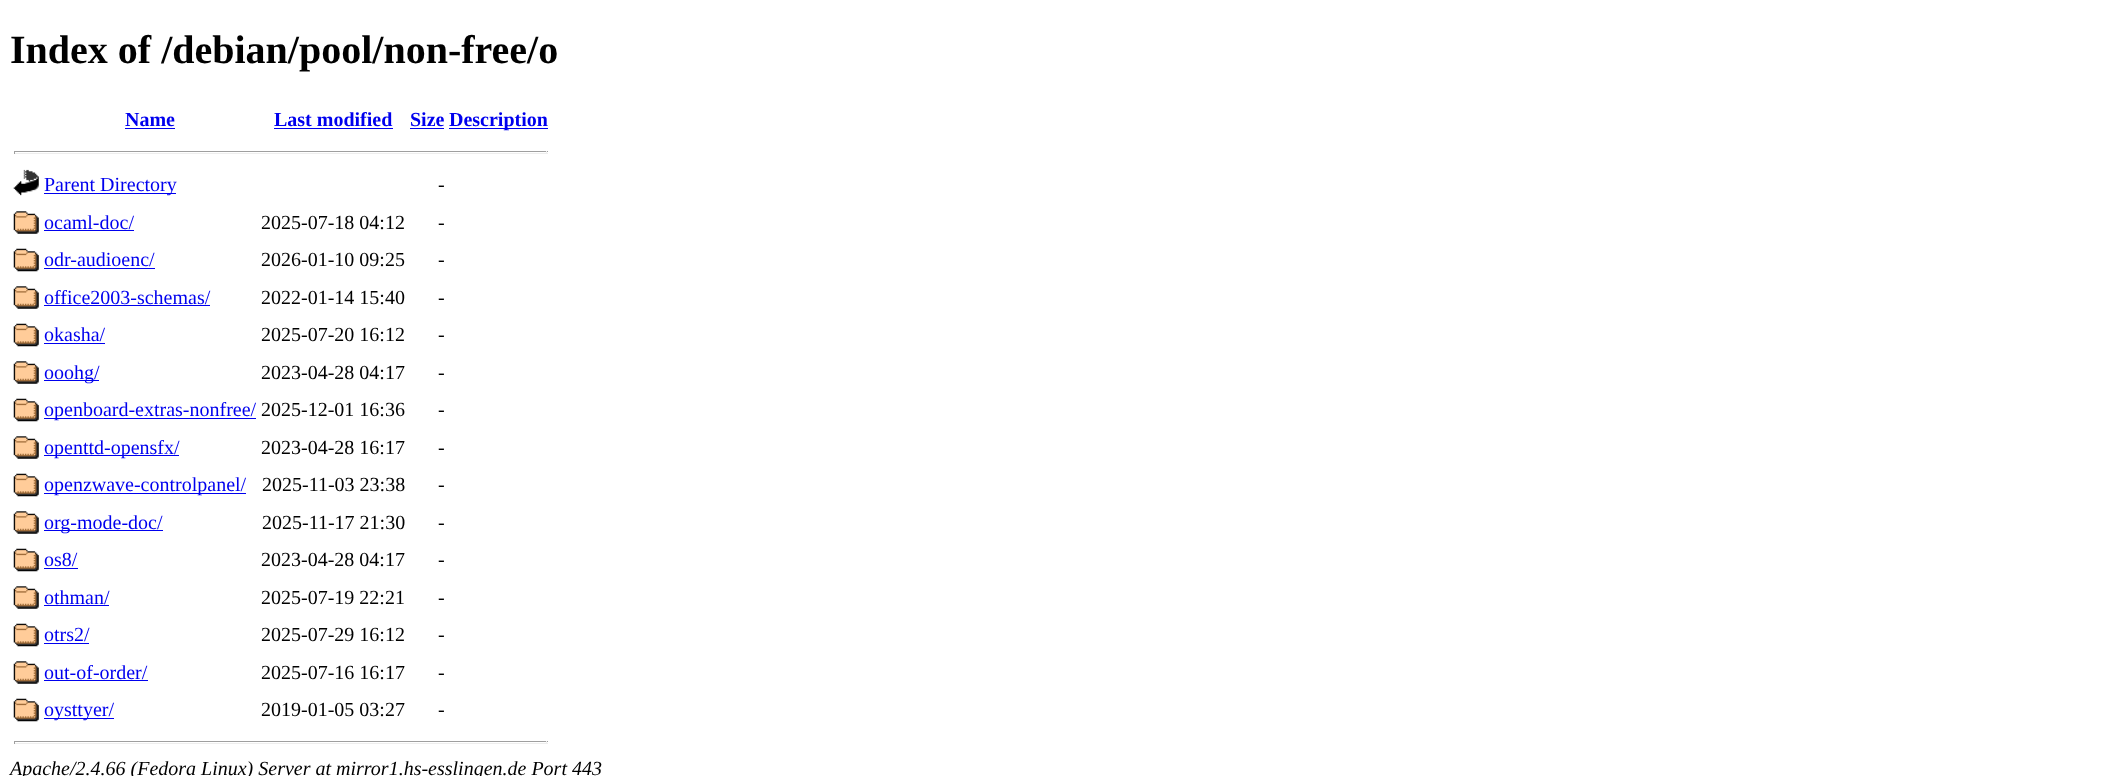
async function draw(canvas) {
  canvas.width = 2103
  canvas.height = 776
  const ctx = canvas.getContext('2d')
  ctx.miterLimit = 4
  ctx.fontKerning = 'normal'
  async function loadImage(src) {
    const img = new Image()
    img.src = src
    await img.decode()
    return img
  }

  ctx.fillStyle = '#fff'
  ctx.fillRect(0, 0, 2103, 776)
  ctx.font = 'bold 40px Liberation Serif'
  ctx.fillStyle = '#000'
  ctx.fillText('Index of /debian/pool/non-free/o', 10, 63)
  ctx.font = 'bold 20px Liberation Serif'
  ctx.fillStyle = '#00e'
  ctx.fillText('Name', 125, 126)
  ctx.fillRect(125, 128, 50, 1)
  ctx.fillText('Last modified', 274, 126)
  ctx.fillRect(274, 128, 119, 1)
  ctx.fillText('Size', 410, 126)
  ctx.fillRect(410, 128, 34, 1)
  ctx.fillRect(449, 128, 99, 1)
  ctx.fillText('Description', 449, 126)
  ctx.fillStyle = '#9f9f9f'
  ctx.fillRect(14, 151, 534, 1)
  ctx.fillStyle = '#eee'
  ctx.fillRect(546, 151, 1, 3)
  ctx.fillRect(14, 153, 534, 1)
  ctx.fillStyle = '#9f9f9f'
  ctx.fillRect(14, 151, 1, 3)
  ctx.drawImage(await loadImage('image0.png'), 13, 169, 26, 27)
  ctx.fillStyle = '#00e'
  ctx.fillRect(44, 193, 132, 1)
  ctx.font = '20px Liberation Serif'
  ctx.fillText('Parent Directory', 44, 191)
  ctx.fillStyle = '#000'
  ctx.fillText('-', 438, 191)
  ctx.drawImage(await loadImage('image1.png'), 13, 211, 26, 23)
  ctx.fillStyle = '#00e'
  ctx.fillText('ocaml-doc/', 44, 229)
  ctx.fillRect(44, 230, 90, 1)
  ctx.fillStyle = '#000'
  ctx.fillText('2025-07-18 04:12', 261, 229)
  ctx.fillText('-', 438, 229)
  ctx.drawImage(await loadImage('image2.png'), 13, 248, 26, 24)
  ctx.fillStyle = '#00e'
  ctx.fillText('odr-audioenc/', 44, 266)
  ctx.fillRect(44, 268, 111, 1)
  ctx.fillStyle = '#000'
  ctx.fillText('2026-01-10 09:25', 261, 266)
  ctx.fillText('-', 438, 266)
  ctx.drawImage(await loadImage('image3.png'), 13, 286, 26, 23)
  ctx.fillStyle = '#00e'
  ctx.fillText('office2003-schemas/', 44, 304)
  ctx.fillRect(44, 305, 166, 1)
  ctx.fillStyle = '#000'
  ctx.fillText('2022-01-14 15:40', 261, 304)
  ctx.fillText('-', 438, 304)
  ctx.drawImage(await loadImage('image2.png'), 13, 323, 26, 24)
  ctx.fillStyle = '#00e'
  ctx.fillText('okasha/', 44, 341)
  ctx.fillRect(44, 343, 61, 1)
  ctx.fillStyle = '#000'
  ctx.fillText('2025-07-20 16:12', 261, 341)
  ctx.fillText('-', 438, 341)
  ctx.drawImage(await loadImage('image1.png'), 13, 361, 26, 23)
  ctx.fillStyle = '#00e'
  ctx.fillRect(44, 380, 55, 1)
  ctx.fillText('ooohg/', 44, 379)
  ctx.fillStyle = '#000'
  ctx.fillText('2023-04-28 04:17', 261, 379)
  ctx.fillText('-', 438, 379)
  ctx.drawImage(await loadImage('image2.png'), 13, 398, 26, 24)
  ctx.fillStyle = '#00e'
  ctx.fillRect(44, 418, 212, 1)
  ctx.fillText('openboard-extras-nonfree/', 44, 416)
  ctx.fillStyle = '#000'
  ctx.fillText('2025-12-01 16:36', 261, 416)
  ctx.fillText('-', 438, 416)
  ctx.drawImage(await loadImage('image1.png'), 13, 436, 26, 23)
  ctx.fillStyle = '#00e'
  ctx.fillRect(44, 455, 135, 1)
  ctx.fillText('openttd-opensfx/', 44, 454)
  ctx.fillStyle = '#000'
  ctx.fillText('2023-04-28 16:17', 261, 454)
  ctx.fillText('-', 438, 454)
  ctx.drawImage(await loadImage('image2.png'), 13, 473, 26, 24)
  ctx.fillStyle = '#00e'
  ctx.fillRect(44, 493, 202, 1)
  ctx.fillText('openzwave-controlpanel/', 44, 491)
  ctx.fillStyle = '#000'
  ctx.fillText('2025-11-03 23:38', 262, 491)
  ctx.fillText('-', 438, 491)
  ctx.drawImage(await loadImage('image1.png'), 13, 511, 26, 23)
  ctx.fillStyle = '#00e'
  ctx.fillRect(44, 530, 119, 1)
  ctx.fillText('org-mode-doc/', 44, 529)
  ctx.fillStyle = '#000'
  ctx.fillText('2025-11-17 21:30', 262, 529)
  ctx.fillText('-', 438, 529)
  ctx.drawImage(await loadImage('image2.png'), 13, 548, 26, 24)
  ctx.fillStyle = '#00e'
  ctx.fillText('os8/', 44, 566)
  ctx.fillRect(44, 568, 34, 1)
  ctx.fillStyle = '#000'
  ctx.fillText('2023-04-28 04:17', 261, 566)
  ctx.fillText('-', 438, 566)
  ctx.drawImage(await loadImage('image4.png'), 13, 586, 26, 23)
  ctx.fillStyle = '#00e'
  ctx.fillText('othman/', 44, 604)
  ctx.fillRect(44, 605, 65, 1)
  ctx.fillStyle = '#000'
  ctx.fillText('2025-07-19 22:21', 261, 604)
  ctx.fillText('-', 438, 604)
  ctx.drawImage(await loadImage('image2.png'), 13, 623, 26, 24)
  ctx.fillStyle = '#00e'
  ctx.fillText('otrs2/', 44, 641)
  ctx.fillRect(44, 643, 45, 1)
  ctx.fillStyle = '#000'
  ctx.fillText('2025-07-29 16:12', 261, 641)
  ctx.fillText('-', 438, 641)
  ctx.drawImage(await loadImage('image1.png'), 13, 661, 26, 23)
  ctx.fillStyle = '#00e'
  ctx.fillText('out-of-order/', 44, 679)
  ctx.fillRect(44, 680, 104, 1)
  ctx.fillStyle = '#000'
  ctx.fillText('2025-07-16 16:17', 261, 679)
  ctx.fillText('-', 438, 679)
  ctx.drawImage(await loadImage('image2.png'), 13, 698, 26, 24)
  ctx.fillStyle = '#00e'
  ctx.fillRect(44, 718, 70, 1)
  ctx.fillText('oysttyer/', 44, 716)
  ctx.fillStyle = '#000'
  ctx.fillText('2019-01-05 03:27', 261, 716)
  ctx.fillText('-', 438, 716)
  ctx.fillStyle = '#9f9f9f'
  ctx.fillRect(14, 741, 534, 1)
  ctx.fillStyle = '#eee'
  ctx.fillRect(546, 741, 1, 3)
  ctx.fillRect(14, 743, 534, 1)
  ctx.fillStyle = '#9f9f9f'
  ctx.fillRect(14, 741, 1, 3)
  ctx.font = 'italic 20px Liberation Serif'
  ctx.fillStyle = '#000'
  ctx.fillText('Apache/2.4.66 (Fedora Linux) Server at mirror1.hs-esslingen.de Port 443', 10, 775)
}

draw(document.querySelector('canvas'))
